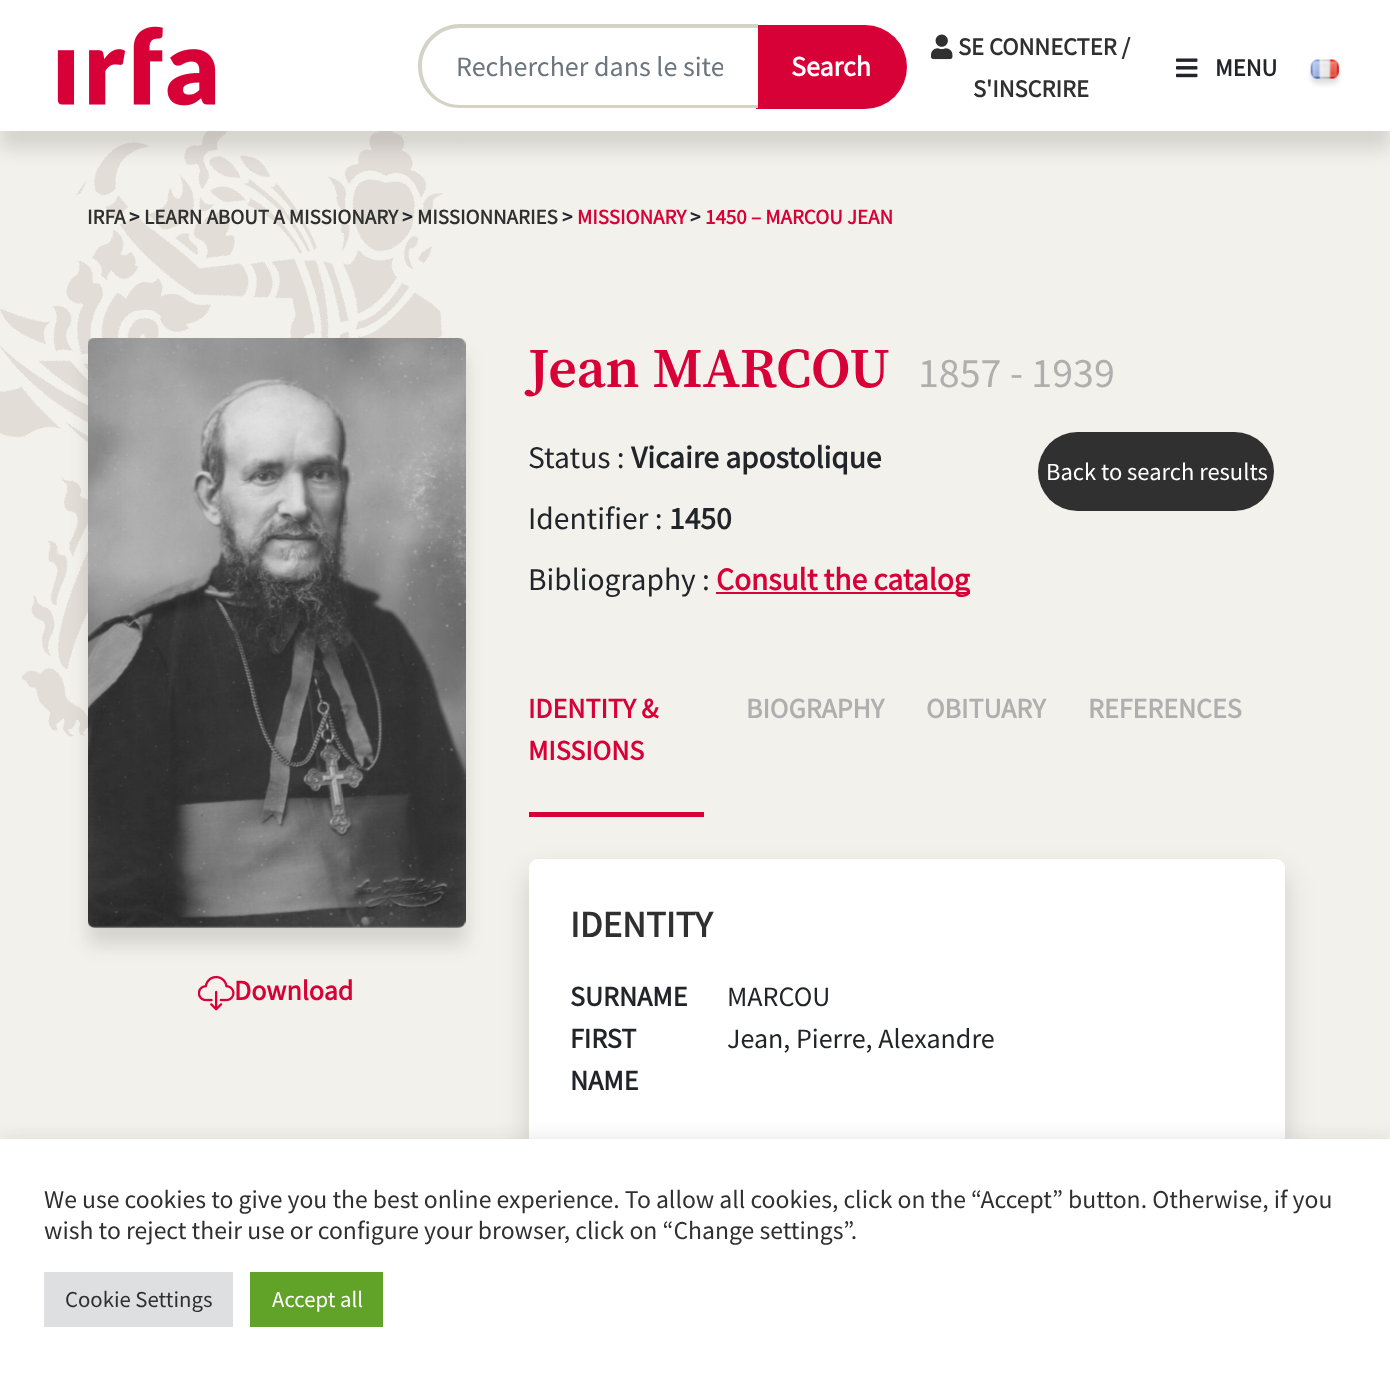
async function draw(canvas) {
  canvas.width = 1390
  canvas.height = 1378
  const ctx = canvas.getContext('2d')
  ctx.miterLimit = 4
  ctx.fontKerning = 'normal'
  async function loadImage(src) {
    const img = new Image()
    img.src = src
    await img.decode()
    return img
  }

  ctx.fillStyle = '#f3f1eb'
  ctx.fillRect(0, 0, 1390, 1378)
  ctx.drawImage(await loadImage('image4.png'), 0, 131, 467, 606)
  ctx.fillStyle = '#30303026'
  ctx.filter = 'blur(9px)'
  ctx.beginPath()
  ctx.rect(0, 18, 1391, 131)
  ctx.fill()
  ctx.filter = 'none'
  ctx.fillStyle = '#fff'
  ctx.fillRect(0, 0, 1390, 131)
  ctx.drawImage(await loadImage('image0.png'), 57, 26, 159, 80)
  ctx.fillStyle = '#d70037'
  ctx.beginPath()
  ctx.roundRect(756, 25, 151, 84, [0, 42, 42, 0])
  ctx.fill()
  ctx.fillStyle = '#fff'
  ctx.beginPath()
  ctx.roundRect(422, 28, 336, 77, [38.5, 0, 0, 38.5])
  ctx.fill()
  ctx.fillStyle = '#d7d2c8'
  ctx.beginPath()
  ctx.moveTo(460, 24)
  ctx.lineTo(758, 24)
  ctx.lineTo(758, 108)
  ctx.lineTo(460, 108)
  ctx.bezierCurveTo(437, 108, 418, 90, 418, 66)
  ctx.bezierCurveTo(418, 43, 437, 24, 460, 24)
  ctx.closePath()
  ctx.moveTo(460, 28)
  ctx.lineTo(758, 28)
  ctx.lineTo(758, 105)
  ctx.lineTo(460, 105)
  ctx.bezierCurveTo(439, 105, 422, 88, 422, 66)
  ctx.bezierCurveTo(422, 45, 439, 28, 460, 28)
  ctx.closePath()
  ctx.fill('evenodd')
  ctx.save()
  ctx.beginPath()
  ctx.rect(457, 49, 266, 35)
  ctx.clip()
  ctx.font = '28px Source Sans Pro'
  ctx.fillStyle = '#6c757d'
  ctx.fillText('Rechercher dans le site', 456, 76)
  ctx.restore()
  ctx.font = 'bold 28px Source Sans Pro'
  ctx.fillStyle = '#fff'
  ctx.fillText('Search', 791, 76)
  ctx.drawImage(await loadImage('image1.png'), 931, 34, 22, 26)
  ctx.font = 'bold 24.5px Source Sans Pro'
  ctx.fillStyle = '#303030'
  ctx.fillText('SE CONNECTER /', 958, 55)
  ctx.fillText('S\'INSCRIRE', 973, 97)
  ctx.drawImage(await loadImage('image2.png'), 1176, 58, 22, 20)
  ctx.fillStyle = '#212529'
  ctx.fillText('MENU', 1215, 76)
  ctx.fillStyle = '#30303026'
  ctx.filter = 'blur(2.5px)'
  ctx.beginPath()
  ctx.roundRect(1311, 65, 28, 19, 7)
  ctx.fill()
  ctx.filter = 'none'
  ctx.drawImage(await loadImage('image3.png'), 1310, 59, 29, 21)
  ctx.font = 'bold 21px Source Sans Pro'
  ctx.fillStyle = '#303030'
  ctx.fillText('IRFA', 87, 224)
  ctx.fillStyle = '#212529'
  ctx.fillText('>', 129, 224)
  ctx.fillStyle = '#303030'
  ctx.fillText('LEARN ABOUT A MISSIONARY', 144, 224)
  ctx.fillStyle = '#212529'
  ctx.fillText('>', 402, 224)
  ctx.fillStyle = '#303030'
  ctx.fillText('MISSIONNARIES', 417, 224)
  ctx.fillStyle = '#212529'
  ctx.fillText('>', 562, 224)
  ctx.fillStyle = '#d70037'
  ctx.fillText('MISSIONARY', 577, 224)
  ctx.fillStyle = '#212529'
  ctx.fillText('>', 690, 224)
  ctx.fillStyle = '#d70037'
  ctx.fillText('1450 – MARCOU JEAN', 705, 224)
  ctx.fillStyle = '#30303026'
  ctx.filter = 'blur(9px)'
  ctx.beginPath()
  ctx.roundRect(88, 355, 378, 590, 7)
  ctx.fill()
  ctx.filter = 'none'
  ctx.drawImage(await loadImage('image5.png'), 88, 338, 378, 590)
  ctx.drawImage(await loadImage('image6.png'), 198, 975, 37, 36)
  ctx.font = 'bold 28px Source Sans Pro'
  ctx.fillStyle = '#d70037'
  ctx.fillText('Download', 234, 1000)
  ctx.font = '600 56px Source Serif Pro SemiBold'
  ctx.fillText('Jean MARCOU', 528, 387)
  ctx.font = '42px Source Sans Pro'
  ctx.fillStyle = '#afafaf'
  ctx.fillText('1857 - 1939', 918, 387)
  ctx.font = '31.5px Source Sans Pro'
  ctx.fillStyle = '#212529'
  ctx.fillText('Status :', 528, 468)
  ctx.font = 'bold 31.5px Source Sans Pro'
  ctx.fillText('Vicaire apostolique', 631, 468)
  ctx.font = '31.5px Source Sans Pro'
  ctx.fillText('Identifier :', 528, 529)
  ctx.font = 'bold 31.5px Source Sans Pro'
  ctx.fillText('1450', 669, 529)
  ctx.font = '31.5px Source Sans Pro'
  ctx.fillText('Bibliography :', 528, 590)
  ctx.fillStyle = '#d70037'
  ctx.fillRect(716, 592, 254, 2)
  ctx.font = 'bold 31.5px Source Sans Pro'
  ctx.fillText('Consult the catalog', 716, 590)
  ctx.fillStyle = '#303030'
  ctx.beginPath()
  ctx.roundRect(1038, 432, 236, 79, 39.5)
  ctx.fill()
  ctx.font = '24.5px Source Sans Pro'
  ctx.fillStyle = '#fff'
  ctx.fillText('Back to search results', 1046, 480)
  ctx.fillStyle = '#d70037'
  ctx.fillRect(529, 812, 175, 5)
  ctx.font = 'bold 28px Source Sans Pro'
  ctx.fillText('IDENTITY &', 528, 718)
  ctx.fillText('MISSIONS', 528, 760)
  ctx.fillStyle = '#afafaf'
  ctx.fillText('BIOGRAPHY', 746, 718)
  ctx.fillText('OBITUARY', 926, 718)
  ctx.fillText('REFERENCES', 1088, 718)
  ctx.fillStyle = '#00000026'
  ctx.filter = 'blur(14px)'
  ctx.beginPath()
  ctx.roundRect(529, 873, 756, 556, 9)
  ctx.fill()
  ctx.filter = 'none'
  ctx.fillStyle = '#fff'
  ctx.beginPath()
  ctx.roundRect(529, 859, 756, 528, 9)
  ctx.fill()
  ctx.font = 'bold 37px Source Sans Pro'
  ctx.fillStyle = '#303030'
  ctx.fillText('IDENTITY', 570, 937)
  ctx.font = 'bold 28px Source Sans Pro'
  ctx.fillStyle = '#212529'
  ctx.fillText('SURNAME', 570, 1006)
  ctx.font = '28px Source Sans Pro'
  ctx.fillText('MARCOU', 727, 1006)
  ctx.font = 'bold 28px Source Sans Pro'
  ctx.fillText('FIRST', 570, 1048)
  ctx.fillText('NAME', 570, 1090)
  ctx.font = '28px Source Sans Pro'
  ctx.fillText('Jean, Pierre, Alexandre', 727, 1048)
  ctx.fillStyle = '#acabab4d'
  ctx.filter = 'blur(9px)'
  ctx.beginPath()
  ctx.rect(0, 1138, 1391, 239)
  ctx.fill()
  ctx.filter = 'none'
  ctx.fillStyle = '#fff'
  ctx.fillRect(0, 1139, 1390, 239)
  ctx.font = '25.67px Source Sans Pro'
  ctx.fillStyle = '#303030'
  ctx.fillText('We use cookies to give you the best online experience. To allow all cookies, click on the “Accept” button. Otherwise, if you', 44, 1208)
  ctx.fillText('wish to reject their use or configure your browser, click on “Change settings”.', 44, 1239)
  ctx.fillStyle = '#dedfe0'
  ctx.fillRect(44, 1272, 189, 55)
  ctx.font = '22.75px Source Sans Pro'
  ctx.fillStyle = '#303030'
  ctx.fillText('Cookie Settings', 65, 1307)
  ctx.fillStyle = '#61a229'
  ctx.fillRect(250, 1272, 133, 55)
  ctx.fillStyle = '#fff'
  ctx.fillText('Accept all', 272, 1307)
}

draw(document.querySelector('canvas'))
